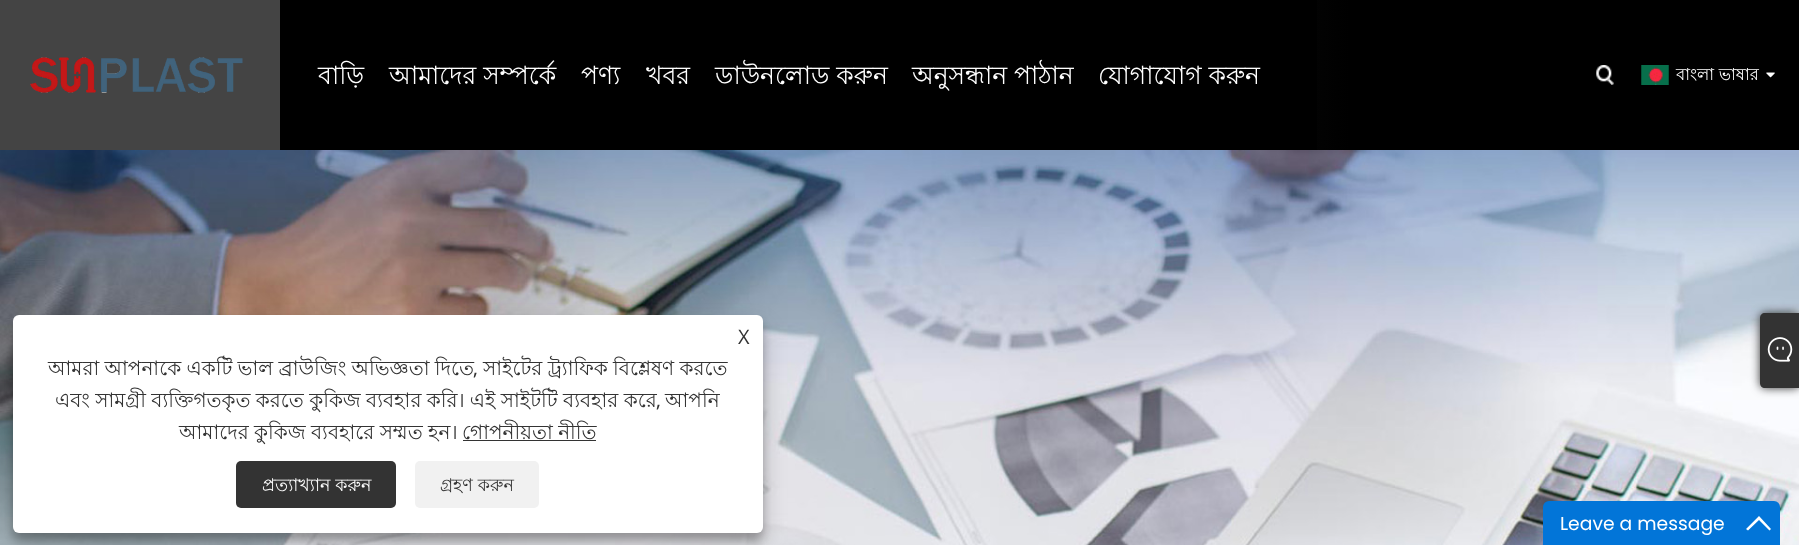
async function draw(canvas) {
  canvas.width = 1799
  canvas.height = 545
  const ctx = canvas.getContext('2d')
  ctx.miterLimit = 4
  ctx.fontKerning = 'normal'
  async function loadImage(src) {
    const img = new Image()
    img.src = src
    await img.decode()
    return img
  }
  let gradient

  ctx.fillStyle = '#fff'
  ctx.fillRect(0, 0, 1799, 545)
  gradient = ctx.createLinearGradient(0, 75, 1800, 75)
  gradient.addColorStop(0.25, '#444')
  gradient.addColorStop(0.75, '#000')
  ctx.fillStyle = gradient
  ctx.fillRect(0, 0, 1799, 150)
  ctx.fillStyle = '#000'
  ctx.fillRect(280, 0, 1037, 150)
  ctx.drawImage(await loadImage('image0.png'), 30, 57, 213, 36)
  ctx.font = '25px Lohit Bengali'
  ctx.fillStyle = '#fff'
  ctx.fillText('বাড়ি', 318, 84)
  ctx.fillText('আমাদের সম্পর্কে', 389, 84)
  ctx.fillText('পণ্য', 581, 84)
  ctx.fillText('খবর', 646, 84)
  ctx.fillText('ডাউনলোড করুন', 715, 84)
  ctx.fillText('অনুসন্ধান পাঠান', 912, 84)
  ctx.fillText('যোগাযোগ করুন', 1098, 84)
  ctx.drawImage(await loadImage('image1.png'), 1596, 65, 18, 20)
  ctx.drawImage(await loadImage('image2.png'), 1641, 65, 28, 20)
  ctx.font = '16.5px Lohit Bengali'
  ctx.fillText('বাংলা ভাষার', 1676, 80)
  ctx.drawImage(await loadImage('image3.png'), 1766, 72, 9, 6)
  ctx.drawImage(await loadImage('image4.png'), 0, 150, 1799, 395)
  ctx.fillStyle = '#0000003b'
  ctx.filter = 'blur(4px)'
  ctx.beginPath()
  ctx.roundRect(13, 323, 750, 217, 6)
  ctx.fill()
  ctx.filter = 'none'
  ctx.fillStyle = '#00000030'
  ctx.filter = 'blur(12.5px)'
  ctx.beginPath()
  ctx.roundRect(13, 328, 750, 217, 6)
  ctx.fill()
  ctx.filter = 'none'
  ctx.fillStyle = '#fff'
  ctx.beginPath()
  ctx.roundRect(13, 315, 750, 218, 6)
  ctx.fill()
  ctx.font = '20px Open Sans'
  ctx.fillStyle = '#333'
  ctx.fillText('X', 738, 344)
  ctx.wordSpacing = '-0.25px'
  ctx.font = '20px Lohit Bengali'
  ctx.fillText('আমরা আপনাকে একটি ভাল ব্রাউজিং অভিজ্ঞতা দিতে', 48, 375)
  ctx.wordSpacing = '0px'
  ctx.font = '20px Open Sans'
  ctx.fillText(',', 473, 375)
  ctx.wordSpacing = '-0.25px'
  ctx.font = '20px Lohit Bengali'
  ctx.fillText('সাইটের ট্র্যাফিক বিশ্লেষণ করতে', 483, 375)
  ctx.fillText('এবং সামগ্রী ব্যক্তিগতকৃত করতে কুকিজ ব্যবহার করি। এই সাইটটি ব্যবহার করে', 55, 407)
  ctx.wordSpacing = '0px'
  ctx.font = '20px Open Sans'
  ctx.fillText(',', 656, 407)
  ctx.font = '20px Lohit Bengali'
  ctx.fillText('আপনি', 665, 407)
  ctx.wordSpacing = '-0.25px'
  ctx.fillText('আমাদের কুকিজ ব্যবহারে সম্মত হন।', 179, 439)
  ctx.fillText('গোপনীয়তা নীতি', 462, 439)
  ctx.fillRect(463, 440, 133, 1)
  ctx.beginPath()
  ctx.roundRect(236, 461, 160, 47, 5)
  ctx.fill()
  ctx.wordSpacing = '0px'
  ctx.font = '17.5px Lohit Bengali'
  ctx.fillStyle = '#fff'
  ctx.fillText('প্রত্যাখ্যান করুন', 262, 491)
  ctx.fillStyle = '#f1f1f1'
  ctx.beginPath()
  ctx.roundRect(415, 461, 124, 47, 5)
  ctx.fill()
  ctx.fillStyle = '#333'
  ctx.fillText('গ্রহণ করুন', 440, 491)
  ctx.filter = 'blur(5px)'
  ctx.beginPath()
  ctx.roundRect(1760, 313, 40, 75, 5)
  ctx.fill()
  ctx.filter = 'none'
  ctx.beginPath()
  ctx.moveTo(1765, 313)
  ctx.lineTo(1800, 313)
  ctx.lineTo(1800, 388)
  ctx.lineTo(1765, 388)
  ctx.bezierCurveTo(1762, 388, 1760, 386, 1760, 383)
  ctx.lineTo(1760, 318)
  ctx.bezierCurveTo(1760, 315, 1762, 313, 1765, 313)
  ctx.closePath()
  ctx.fill()
  ctx.drawImage(await loadImage('image5.png'), 1767, 337, 26, 25)
  ctx.fillStyle = '#0275d8'
  ctx.beginPath()
  ctx.roundRect(1543, 501, 237, 44, [6, 6, 0, 0])
  ctx.fill()
  ctx.font = '18.75px Poppins'
  ctx.fillStyle = '#fff'
  ctx.fillText('Leave a message', 1560, 530)
  ctx.beginPath()
  ctx.moveTo(1759, 516)
  ctx.lineTo(1771, 529)
  ctx.lineTo(1769.5, 530.5)
  ctx.lineTo(1759, 520)
  ctx.lineTo(1748, 530.5)
  ctx.lineTo(1746, 529)
  ctx.closePath()
  ctx.fill()
}

draw(document.querySelector('canvas'))
